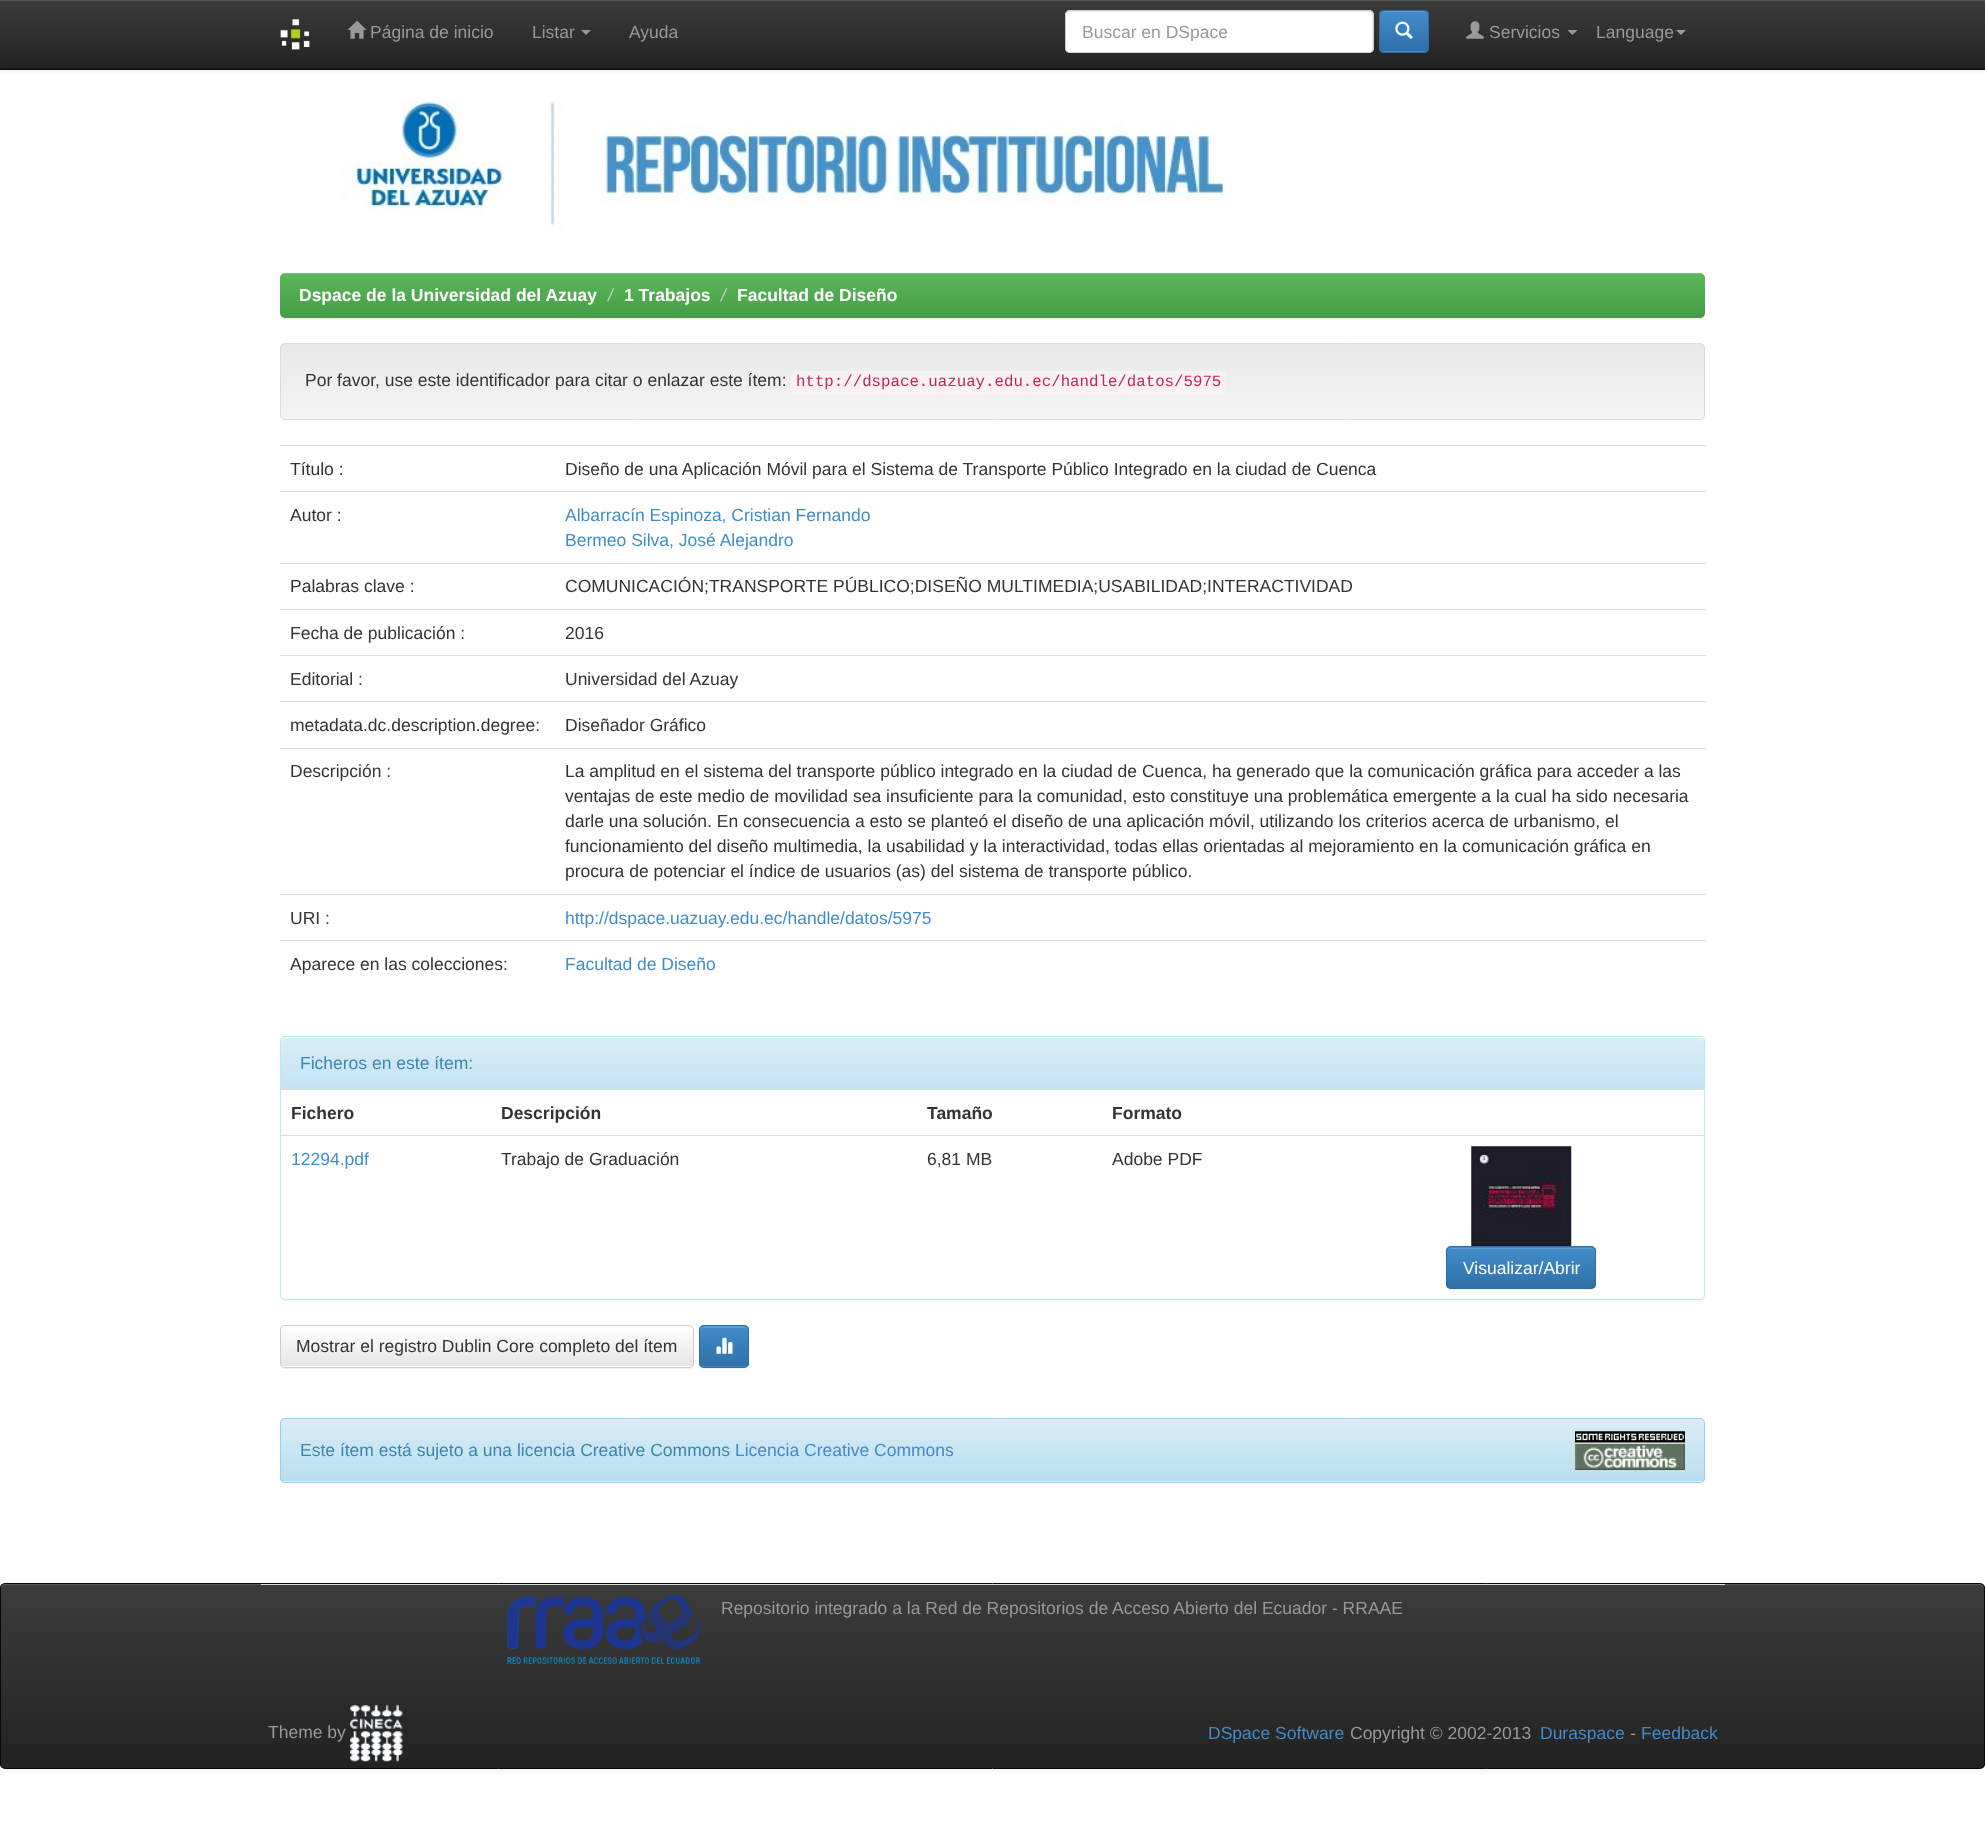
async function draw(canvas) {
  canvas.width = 1985
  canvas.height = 1842
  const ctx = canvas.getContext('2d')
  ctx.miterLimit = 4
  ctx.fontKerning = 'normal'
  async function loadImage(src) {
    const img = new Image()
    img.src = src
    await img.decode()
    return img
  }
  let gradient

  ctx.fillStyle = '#fff'
  ctx.fillRect(0, 0, 1985, 1842)
  ctx.fillStyle = '#00000012'
  ctx.filter = 'blur(3px)'
  ctx.beginPath()
  ctx.rect(0, 1, 1985, 70)
  ctx.fill()
  ctx.filter = 'none'
  gradient = ctx.createLinearGradient(993, 0, 993, 69)
  gradient.addColorStop(0, '#3c3c3c')
  gradient.addColorStop(1, '#222')
  ctx.fillStyle = gradient
  ctx.fillRect(0, 1, 1985, 68)
  ctx.fillStyle = '#595959'
  ctx.fillRect(0, 0, 1985, 1)
  ctx.fillStyle = '#080808'
  ctx.fillRect(0, 69, 1985, 1)
  ctx.drawImage(await loadImage('image0.png'), 280, 19, 30, 31)
  ctx.drawImage(await loadImage('image1.png'), 347, 20, 20, 19)
  ctx.font = '17.5px Liberation Sans'
  ctx.fillStyle = '#999'
  ctx.fillText('Página de inicio', 370, 38)
  ctx.fillText('Listar', 532, 38)
  ctx.beginPath()
  ctx.moveTo(581, 30)
  ctx.lineTo(591, 30)
  ctx.lineTo(586, 35)
  ctx.closePath()
  ctx.fill()
  ctx.fillText('Ayuda', 629, 38)
  ctx.fillStyle = '#fff'
  ctx.beginPath()
  ctx.roundRect(1065, 10, 309, 43, 5)
  ctx.fill()
  ctx.fillStyle = '#ececec'
  ctx.beginPath()
  ctx.moveTo(1070, 12)
  ctx.lineTo(1369, 12)
  ctx.bezierCurveTo(1371, 12, 1372, 14, 1372, 16)
  ctx.lineTo(1372, 50)
  ctx.bezierCurveTo(1373, 49, 1373, 48, 1373, 47)
  ctx.lineTo(1373, 15)
  ctx.bezierCurveTo(1373, 13, 1371, 11, 1369, 11)
  ctx.lineTo(1070, 11)
  ctx.bezierCurveTo(1068, 11, 1066, 13, 1066, 15)
  ctx.lineTo(1066, 16)
  ctx.bezierCurveTo(1066, 14, 1068, 12, 1070, 12)
  ctx.closePath()
  ctx.fill()
  ctx.beginPath()
  ctx.roundRect(1065.5, 10.5, 308, 42, 4.5)
  ctx.strokeStyle = '#ccc'
  ctx.stroke()
  ctx.save()
  ctx.beginPath()
  ctx.rect(1081, 21, 277, 20)
  ctx.clip()
  ctx.fillStyle = '#999'
  ctx.fillText('Buscar en DSpace', 1082, 38)
  ctx.restore()
  ctx.fillStyle = '#428bca'
  ctx.beginPath()
  ctx.roundRect(1379, 10, 50, 43, 5)
  ctx.fill()
  ctx.save()
  ctx.beginPath()
  ctx.roundRect(1379, 10, 50, 43, 5)
  ctx.clip()
  gradient = ctx.createLinearGradient(1404, 11, 1404, 51)
  gradient.addColorStop(0, '#428bca')
  gradient.addColorStop(1, '#3071a9')
  ctx.fillStyle = gradient
  ctx.fillRect(1379, 11, 50, 40)
  ctx.restore()
  ctx.fillStyle = '#5e9cd2'
  ctx.beginPath()
  ctx.moveTo(1384, 12)
  ctx.lineTo(1424, 12)
  ctx.bezierCurveTo(1426, 12, 1428, 14, 1428, 16)
  ctx.bezierCurveTo(1428, 10, 1422, 11, 1417, 11)
  ctx.lineTo(1391, 11)
  ctx.bezierCurveTo(1386, 11, 1380, 10, 1380, 16)
  ctx.bezierCurveTo(1380, 14, 1382, 12, 1384, 12)
  ctx.closePath()
  ctx.fill()
  ctx.beginPath()
  ctx.roundRect(1379.5, 10.5, 49, 42, 4.5)
  ctx.strokeStyle = '#2d6ca2'
  ctx.stroke()
  ctx.drawImage(await loadImage('image2.png'), 1395, 21, 18, 18)
  ctx.drawImage(await loadImage('image3.png'), 1466, 21, 18, 18)
  ctx.fillStyle = '#999'
  ctx.fillText('Servicios', 1489, 38)
  ctx.beginPath()
  ctx.moveTo(1567.5, 30)
  ctx.lineTo(1577.5, 30)
  ctx.lineTo(1572.5, 35)
  ctx.closePath()
  ctx.fill()
  ctx.fillText('Language', 1596, 38)
  ctx.beginPath()
  ctx.moveTo(1676, 30)
  ctx.lineTo(1686, 30)
  ctx.lineTo(1681, 35)
  ctx.closePath()
  ctx.fill()
  ctx.drawImage(await loadImage('image4.png'), 342, 101, 882, 130)
  ctx.fillStyle = '#00000012'
  ctx.filter = 'blur(0.5px)'
  ctx.beginPath()
  ctx.roundRect(280, 274, 1425, 45, 5)
  ctx.fill()
  ctx.filter = 'none'
  gradient = ctx.createLinearGradient(993, 272, 993, 318)
  gradient.addColorStop(0, '#5cb85c')
  gradient.addColorStop(1, '#449d44')
  ctx.fillStyle = gradient
  ctx.beginPath()
  ctx.roundRect(280, 273, 1425, 45, 5)
  ctx.fill()
  ctx.fillStyle = '#ffffff26'
  ctx.beginPath()
  ctx.moveTo(285, 274)
  ctx.lineTo(1700, 274)
  ctx.bezierCurveTo(1703, 274, 1705, 276, 1705, 279)
  ctx.bezierCurveTo(1705, 276, 1703, 273, 1700, 273)
  ctx.lineTo(285, 273)
  ctx.bezierCurveTo(282, 273, 280, 276, 280, 279)
  ctx.bezierCurveTo(280, 276, 282, 274, 285, 274)
  ctx.closePath()
  ctx.fill()
  ctx.font = 'bold 17.5px Liberation Sans'
  ctx.fillStyle = '#fff'
  ctx.fillText('Dspace de la Universidad del Azuay', 299, 301)
  ctx.font = 'italic 17.5px Liberation Sans'
  ctx.fillStyle = '#ccc'
  ctx.fillText('/', 608, 301)
  ctx.font = 'bold 17.5px Liberation Sans'
  ctx.fillStyle = '#fff'
  ctx.fillText('1 Trabajos', 624, 301)
  ctx.font = 'italic 17.5px Liberation Sans'
  ctx.fillStyle = '#ccc'
  ctx.fillText('/', 721, 301)
  ctx.font = 'bold 17.5px Liberation Sans'
  ctx.fillStyle = '#fff'
  ctx.fillText('Facultad de Diseño', 737, 301)
  ctx.save()
  ctx.beginPath()
  ctx.roundRect(280, 343, 1425, 77, 5)
  ctx.clip()
  gradient = ctx.createLinearGradient(993, 344, 993, 419)
  gradient.addColorStop(0, '#e8e8e8')
  gradient.addColorStop(1, '#f5f5f5')
  ctx.fillStyle = gradient
  ctx.fillRect(280, 344, 1425, 75)
  ctx.restore()
  ctx.beginPath()
  ctx.roundRect(280.5, 343.5, 1424, 76, 4.5)
  ctx.strokeStyle = '#dcdcdc'
  ctx.stroke()
  ctx.font = '17.5px Liberation Sans'
  ctx.fillStyle = '#333'
  ctx.fillText('Por favor, use este identificador para citar o enlazar este ítem:', 305, 386)
  ctx.fillStyle = '#f9f2f4'
  ctx.beginPath()
  ctx.roundRect(791, 371, 435, 23, 5)
  ctx.fill()
  ctx.font = '15.75px Liberation Mono'
  ctx.fillStyle = '#c7254e'
  ctx.fillText('http://dspace.uazuay.edu.ec/handle/datos/5975', 796, 386)
  ctx.font = '17.5px Liberation Sans'
  ctx.fillStyle = '#333'
  ctx.fillText('Título :', 290, 475)
  ctx.fillStyle = '#ddd'
  ctx.fillRect(280, 445, 1426, 1)
  ctx.fillStyle = '#333'
  ctx.fillText('Diseño de una Aplicación Móvil para el Sistema de Transporte Público Integrado en la ciudad de Cuenca', 565, 475)
  ctx.fillText('Autor :', 290, 521)
  ctx.fillStyle = '#ddd'
  ctx.fillRect(280, 491, 1426, 1)
  ctx.fillStyle = '#428bca'
  ctx.fillText('Albarracín Espinoza, Cristian Fernando', 565, 521)
  ctx.fillText('Bermeo Silva, José Alejandro', 565, 546)
  ctx.fillStyle = '#333'
  ctx.fillText('Palabras clave :', 290, 592)
  ctx.fillStyle = '#ddd'
  ctx.fillRect(280, 563, 1426, 1)
  ctx.fillStyle = '#333'
  ctx.fillText('COMUNICACIÓN;TRANSPORTE PÚBLICO;DISEÑO MULTIMEDIA;USABILIDAD;INTERACTIVIDAD', 565, 592)
  ctx.fillText('Fecha de publicación :', 290, 639)
  ctx.fillStyle = '#ddd'
  ctx.fillRect(280, 609, 1426, 1)
  ctx.fillStyle = '#333'
  ctx.fillText('2016', 565, 639)
  ctx.fillText('Editorial :', 290, 685)
  ctx.fillStyle = '#ddd'
  ctx.fillRect(280, 655, 1426, 1)
  ctx.fillStyle = '#333'
  ctx.fillText('Universidad del Azuay', 565, 685)
  ctx.fillText('metadata.dc.description.degree:', 290, 731)
  ctx.fillStyle = '#ddd'
  ctx.fillRect(280, 701, 1426, 1)
  ctx.fillStyle = '#333'
  ctx.fillText('Diseñador Gráfico', 565, 731)
  ctx.fillText('Descripción :', 290, 777)
  ctx.fillStyle = '#ddd'
  ctx.fillRect(280, 748, 1426, 1)
  ctx.fillStyle = '#333'
  ctx.fillText('La amplitud en el sistema del transporte público integrado en la ciudad de Cuenca, ha generado que la comunicación gráfica para acceder a las', 565, 777)
  ctx.fillText('ventajas de este medio de movilidad sea insuficiente para la comunidad, esto constituye una problemática emergente a la cual ha sido necesaria', 565, 802)
  ctx.fillText('darle una solución. En consecuencia a esto se planteó el diseño de una aplicación móvil, utilizando los criterios acerca de urbanismo, el', 565, 827)
  ctx.fillText('funcionamiento del diseño multimedia, la usabilidad y la interactividad, todas ellas orientadas al mejoramiento en la comunicación gráfica en', 565, 852)
  ctx.fillText('procura de potenciar el índice de usuarios (as) del sistema de transporte público.', 565, 877)
  ctx.fillText('URI :', 290, 924)
  ctx.fillStyle = '#ddd'
  ctx.fillRect(280, 894, 1426, 1)
  ctx.fillStyle = '#428bca'
  ctx.fillText('http://dspace.uazuay.edu.ec/handle/datos/5975', 565, 924)
  ctx.fillStyle = '#333'
  ctx.fillText('Aparece en las colecciones:', 290, 970)
  ctx.fillStyle = '#ddd'
  ctx.fillRect(280, 940, 1426, 1)
  ctx.fillStyle = '#428bca'
  ctx.fillText('Facultad de Diseño', 565, 970)
  ctx.fillStyle = '#0000000d'
  ctx.filter = 'blur(1px)'
  ctx.beginPath()
  ctx.roundRect(280, 1038, 1425, 263, 5)
  ctx.fill()
  ctx.filter = 'none'
  ctx.fillStyle = '#fff'
  ctx.beginPath()
  ctx.roundRect(280.5, 1036.5, 1424, 263, 4.5)
  ctx.fill()
  ctx.strokeStyle = '#bce8f1'
  ctx.stroke()
  gradient = ctx.createLinearGradient(993, 1037, 993, 1088)
  gradient.addColorStop(0, '#d9edf7')
  gradient.addColorStop(1, '#c4e3f3')
  ctx.fillStyle = gradient
  ctx.beginPath()
  ctx.roundRect(281, 1038, 1423, 50, [4, 4, 0, 0])
  ctx.fill()
  ctx.fillStyle = '#bce8f1'
  ctx.fillRect(281, 1088, 1423, 1)
  ctx.fillStyle = '#3a87ad'
  ctx.fillText('Ficheros en este ítem:', 300, 1069)
  ctx.fillStyle = '#ddd'
  ctx.fillRect(281, 1089, 1424, 1)
  ctx.font = 'bold 17.5px Liberation Sans'
  ctx.fillStyle = '#333'
  ctx.fillText('Fichero', 291, 1119)
  ctx.fillText('Descripción', 501, 1119)
  ctx.fillText('Tamaño', 927, 1119)
  ctx.fillText('Formato', 1112, 1119)
  ctx.font = '17.5px Liberation Sans'
  ctx.fillStyle = '#428bca'
  ctx.fillText('12294.pdf', 291, 1165)
  ctx.fillStyle = '#333'
  ctx.fillText('Trabajo de Graduación', 501, 1165)
  ctx.fillText('6,81 MB', 927, 1165)
  ctx.fillText('Adobe PDF', 1112, 1165)
  ctx.fillStyle = '#ddd'
  ctx.fillRect(281, 1135, 1424, 1)
  ctx.drawImage(await loadImage('image5.png'), 1471, 1146, 101, 100)
  ctx.fillStyle = '#00000012'
  ctx.filter = 'blur(0.5px)'
  ctx.beginPath()
  ctx.roundRect(1446, 1248, 150, 42, 5)
  ctx.fill()
  ctx.filter = 'none'
  ctx.fillStyle = '#428bca'
  ctx.beginPath()
  ctx.roundRect(1446, 1246, 150, 43, 5)
  ctx.fill()
  ctx.save()
  ctx.beginPath()
  ctx.roundRect(1446, 1246, 150, 43, 5)
  ctx.clip()
  gradient = ctx.createLinearGradient(1521, 1248, 1521, 1288)
  gradient.addColorStop(0, '#428bca')
  gradient.addColorStop(1, '#3071a9')
  ctx.fillStyle = gradient
  ctx.fillRect(1446, 1248, 150, 40)
  ctx.restore()
  ctx.fillStyle = '#5e9cd2'
  ctx.beginPath()
  ctx.moveTo(1451, 1249)
  ctx.lineTo(1591, 1249)
  ctx.bezierCurveTo(1593, 1249, 1595, 1250, 1595, 1252)
  ctx.bezierCurveTo(1595, 1250, 1593, 1248, 1591, 1248)
  ctx.lineTo(1452, 1248)
  ctx.bezierCurveTo(1451, 1248, 1449, 1249, 1449, 1250)
  ctx.closePath()
  ctx.fill()
  ctx.beginPath()
  ctx.roundRect(1446.5, 1246.5, 149, 42, 4.5)
  ctx.strokeStyle = '#2d6ca2'
  ctx.stroke()
  ctx.fillStyle = '#fff'
  ctx.fillText('Visualizar/Abrir', 1463, 1274)
  ctx.fillStyle = '#00000012'
  ctx.filter = 'blur(0.5px)'
  ctx.beginPath()
  ctx.roundRect(280, 1326, 414, 43, 5)
  ctx.fill()
  ctx.filter = 'none'
  ctx.fillStyle = '#fff'
  ctx.beginPath()
  ctx.roundRect(280, 1325, 414, 43, 5)
  ctx.fill()
  ctx.save()
  ctx.beginPath()
  ctx.roundRect(280, 1325, 414, 43, 5)
  ctx.clip()
  gradient = ctx.createLinearGradient(487, 1326, 487, 1366)
  gradient.addColorStop(0, '#fff')
  gradient.addColorStop(1, '#e6e6e6')
  ctx.fillStyle = gradient
  ctx.fillRect(280, 1326, 414, 40)
  ctx.restore()
  ctx.fillStyle = '#ffffff26'
  ctx.beginPath()
  ctx.moveTo(285, 1328)
  ctx.lineTo(689, 1328)
  ctx.bezierCurveTo(691, 1328, 692, 1329, 692, 1331)
  ctx.lineTo(692, 1365)
  ctx.bezierCurveTo(693, 1364, 693, 1363, 693, 1362)
  ctx.lineTo(693, 1330)
  ctx.bezierCurveTo(693, 1328, 691, 1326, 689, 1326)
  ctx.lineTo(285, 1326)
  ctx.bezierCurveTo(283, 1326, 281, 1328, 281, 1330)
  ctx.lineTo(281, 1331)
  ctx.bezierCurveTo(281, 1329, 283, 1328, 285, 1328)
  ctx.closePath()
  ctx.fill()
  ctx.beginPath()
  ctx.roundRect(280.5, 1325.5, 413, 42, 4.5)
  ctx.strokeStyle = '#ccc'
  ctx.stroke()
  ctx.fillStyle = '#333'
  ctx.fillText('Mostrar el registro Dublin Core completo del ítem', 296, 1352)
  ctx.fillStyle = '#00000012'
  ctx.filter = 'blur(0.5px)'
  ctx.beginPath()
  ctx.roundRect(699, 1326, 50, 43, 5)
  ctx.fill()
  ctx.filter = 'none'
  ctx.fillStyle = '#428bca'
  ctx.beginPath()
  ctx.roundRect(699, 1325, 50, 43, 5)
  ctx.fill()
  ctx.save()
  ctx.beginPath()
  ctx.roundRect(699, 1325, 50, 43, 5)
  ctx.clip()
  gradient = ctx.createLinearGradient(724, 1326, 724, 1366)
  gradient.addColorStop(0, '#428bca')
  gradient.addColorStop(1, '#3071a9')
  ctx.fillStyle = gradient
  ctx.fillRect(699, 1326, 50, 40)
  ctx.restore()
  ctx.fillStyle = '#5e9cd1'
  ctx.beginPath()
  ctx.moveTo(704, 1328)
  ctx.lineTo(744, 1328)
  ctx.bezierCurveTo(746, 1328, 748, 1329, 748, 1331)
  ctx.bezierCurveTo(748, 1325, 742, 1326, 737, 1326)
  ctx.lineTo(711, 1326)
  ctx.bezierCurveTo(706, 1326, 700, 1325, 700, 1331)
  ctx.bezierCurveTo(700, 1329, 702, 1328, 704, 1328)
  ctx.closePath()
  ctx.fill()
  ctx.beginPath()
  ctx.roundRect(699.5, 1325.5, 49, 42, 4.5)
  ctx.strokeStyle = '#2d6ca2'
  ctx.stroke()
  ctx.drawImage(await loadImage('image6.png'), 716, 1337, 17, 17)
  ctx.fillStyle = '#0000000d'
  ctx.filter = 'blur(1px)'
  ctx.beginPath()
  ctx.roundRect(280, 1419, 1425, 65, 5)
  ctx.fill()
  ctx.filter = 'none'
  ctx.fillStyle = '#d9edf7'
  ctx.beginPath()
  ctx.roundRect(280, 1418, 1425, 65, 5)
  ctx.fill()
  ctx.save()
  ctx.beginPath()
  ctx.roundRect(280, 1418, 1425, 65, 5)
  ctx.clip()
  gradient = ctx.createLinearGradient(993, 1419, 993, 1481)
  gradient.addColorStop(0, '#d9edf7')
  gradient.addColorStop(1, '#b9def0')
  ctx.fillStyle = gradient
  ctx.fillRect(280, 1419, 1425, 62)
  ctx.restore()
  ctx.fillStyle = '#e2f1f9'
  ctx.beginPath()
  ctx.moveTo(285, 1420)
  ctx.lineTo(1700, 1420)
  ctx.bezierCurveTo(1702, 1420, 1704, 1422, 1704, 1424)
  ctx.lineTo(1704, 1423)
  ctx.bezierCurveTo(1704, 1421, 1702, 1419, 1700, 1419)
  ctx.lineTo(285, 1419)
  ctx.bezierCurveTo(283, 1419, 281, 1421, 281, 1423)
  ctx.lineTo(281, 1424)
  ctx.bezierCurveTo(281, 1422, 283, 1420, 285, 1420)
  ctx.closePath()
  ctx.fill()
  ctx.beginPath()
  ctx.roundRect(280.5, 1418.5, 1424, 64, 4.5)
  ctx.strokeStyle = '#9acfea'
  ctx.stroke()
  ctx.fillStyle = '#3a87ad'
  ctx.fillText('Este ítem está sujeto a una licencia Creative Commons', 300, 1456)
  ctx.fillStyle = '#428bca'
  ctx.fillText('Licencia Creative Commons', 735, 1456)
  ctx.drawImage(await loadImage('image7.png'), 1575, 1431, 110, 39)
  ctx.fillStyle = '#00000012'
  ctx.filter = 'blur(3px)'
  ctx.beginPath()
  ctx.roundRect(0, 1584, 1985, 186, 5)
  ctx.fill()
  ctx.filter = 'none'
  ctx.save()
  ctx.beginPath()
  ctx.roundRect(0, 1583, 1985, 186, 5)
  ctx.clip()
  gradient = ctx.createLinearGradient(993, 1584, 993, 1768)
  gradient.addColorStop(0, '#3c3c3c')
  gradient.addColorStop(1, '#222')
  ctx.fillStyle = gradient
  ctx.fillRect(0, 1584, 1985, 184)
  ctx.restore()
  ctx.fillStyle = '#595959'
  ctx.beginPath()
  ctx.moveTo(5, 1585)
  ctx.lineTo(1980, 1585)
  ctx.bezierCurveTo(1982, 1585, 1984, 1587, 1984, 1589)
  ctx.bezierCurveTo(1984, 1586, 1983, 1584, 1980, 1584)
  ctx.lineTo(5, 1584)
  ctx.bezierCurveTo(3, 1584, 1, 1585, 1, 1587)
  ctx.lineTo(1, 1589)
  ctx.bezierCurveTo(1, 1587, 3, 1585, 5, 1585)
  ctx.closePath()
  ctx.fill()
  ctx.beginPath()
  ctx.roundRect(0.5, 1583.5, 1984, 185, 4.5)
  ctx.strokeStyle = '#080808'
  ctx.stroke()
  ctx.drawImage(await loadImage('image8.png'), 507, 1595, 193, 69)
  ctx.fillStyle = '#ddd'
  ctx.fillRect(261, 1584, 1464, 1)
  ctx.fillStyle = '#999'
  ctx.fillText('Repositorio integrado a la Red de Repositorios de Acceso Abierto del Ecuador - RRAAE', 721, 1614)
  ctx.fillText('Theme by', 268, 1738)
  ctx.drawImage(await loadImage('image9.png'), 350, 1705, 53, 57)
  ctx.fillStyle = '#428bca'
  ctx.fillText('DSpace Software', 1208, 1739)
  ctx.fillStyle = '#999'
  ctx.fillText('Copyright © 2002-2013', 1350, 1739)
  ctx.fillStyle = '#428bca'
  ctx.fillText('Duraspace', 1540, 1739)
  ctx.fillStyle = '#999'
  ctx.fillText('-', 1630, 1739)
  ctx.fillStyle = '#428bca'
  ctx.fillText('Feedback', 1641, 1739)
}

draw(document.querySelector('canvas'))
